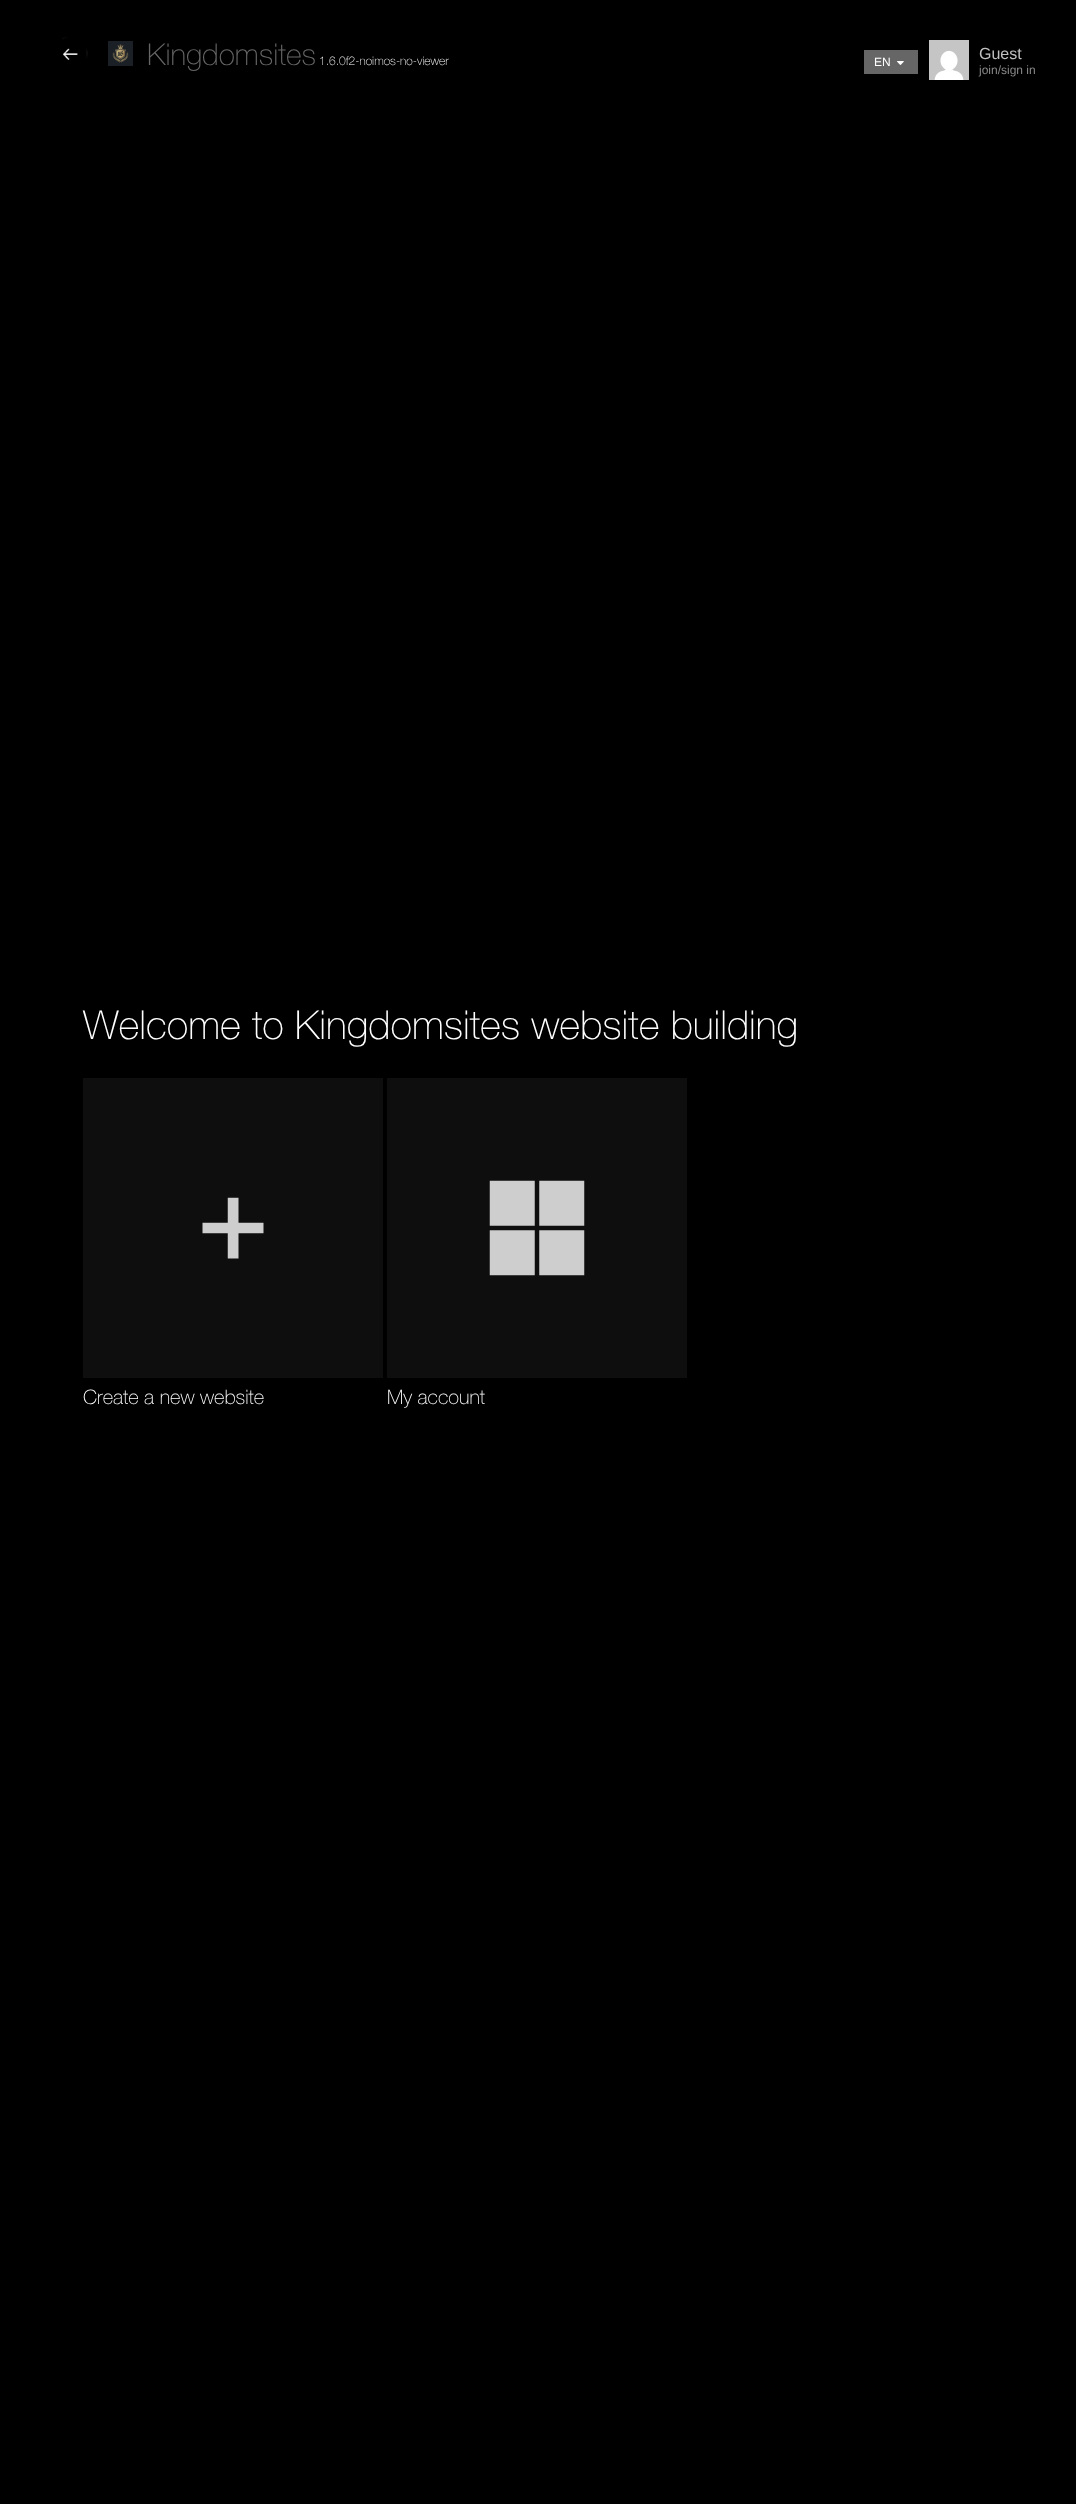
async function draw(canvas) {
  canvas.width = 1076
  canvas.height = 2504
  const ctx = canvas.getContext('2d')
  ctx.miterLimit = 4
  ctx.fontKerning = 'normal'
  async function loadImage(src) {
    const img = new Image()
    img.src = src
    await img.decode()
    return img
  }

  ctx.fillStyle = '#000'
  ctx.fillRect(0, 0, 1076, 2504)
  ctx.drawImage(await loadImage('image0.png'), 62, 37, 26, 23)
  ctx.drawImage(await loadImage('image1.png'), 108, 41, 25, 25)
  ctx.font = '100 30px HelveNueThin'
  ctx.fillStyle = '#666'
  ctx.fillText('Kingdomsites', 147, 65)
  ctx.font = '100 12px HelveNueThin'
  ctx.fillStyle = '#fff'
  ctx.fillText('1.6.0f2-noimos-no-viewer', 319, 65)
  ctx.fillStyle = '#666'
  ctx.fillRect(864, 50, 54, 24)
  ctx.font = '12px Liberation Sans'
  ctx.fillStyle = '#fff'
  ctx.fillText('EN', 874, 66)
  ctx.drawImage(await loadImage('image2.png'), 897, 61, 7, 4)
  ctx.drawImage(await loadImage('image3.png'), 929, 40, 40, 40)
  ctx.font = '16px Liberation Sans'
  ctx.fillStyle = '#c0c0c0'
  ctx.fillText('Guest', 979, 59)
  ctx.font = '12px Liberation Sans'
  ctx.fillStyle = '#888'
  ctx.fillText('join/sign in', 979, 74)
  ctx.font = '100 40px HelveNueThin'
  ctx.fillStyle = '#fff'
  ctx.fillText('Welcome to Kingdomsites website building', 83, 1039)
  ctx.fillStyle = '#0e0e0e'
  ctx.fillRect(83, 1078, 300, 300)
  ctx.drawImage(await loadImage('image4.png'), 202, 1197, 62, 62)
  ctx.font = '100 20px HelveNueThin'
  ctx.fillStyle = '#fff'
  ctx.fillText('Create a new website', 83, 1404)
  ctx.fillStyle = '#0e0e0e'
  ctx.fillRect(387, 1078, 300, 300)
  ctx.drawImage(await loadImage('image5.png'), 489, 1180, 96, 96)
  ctx.fillStyle = '#fff'
  ctx.fillText('My account', 387, 1404)
}

draw(document.querySelector('canvas'))
